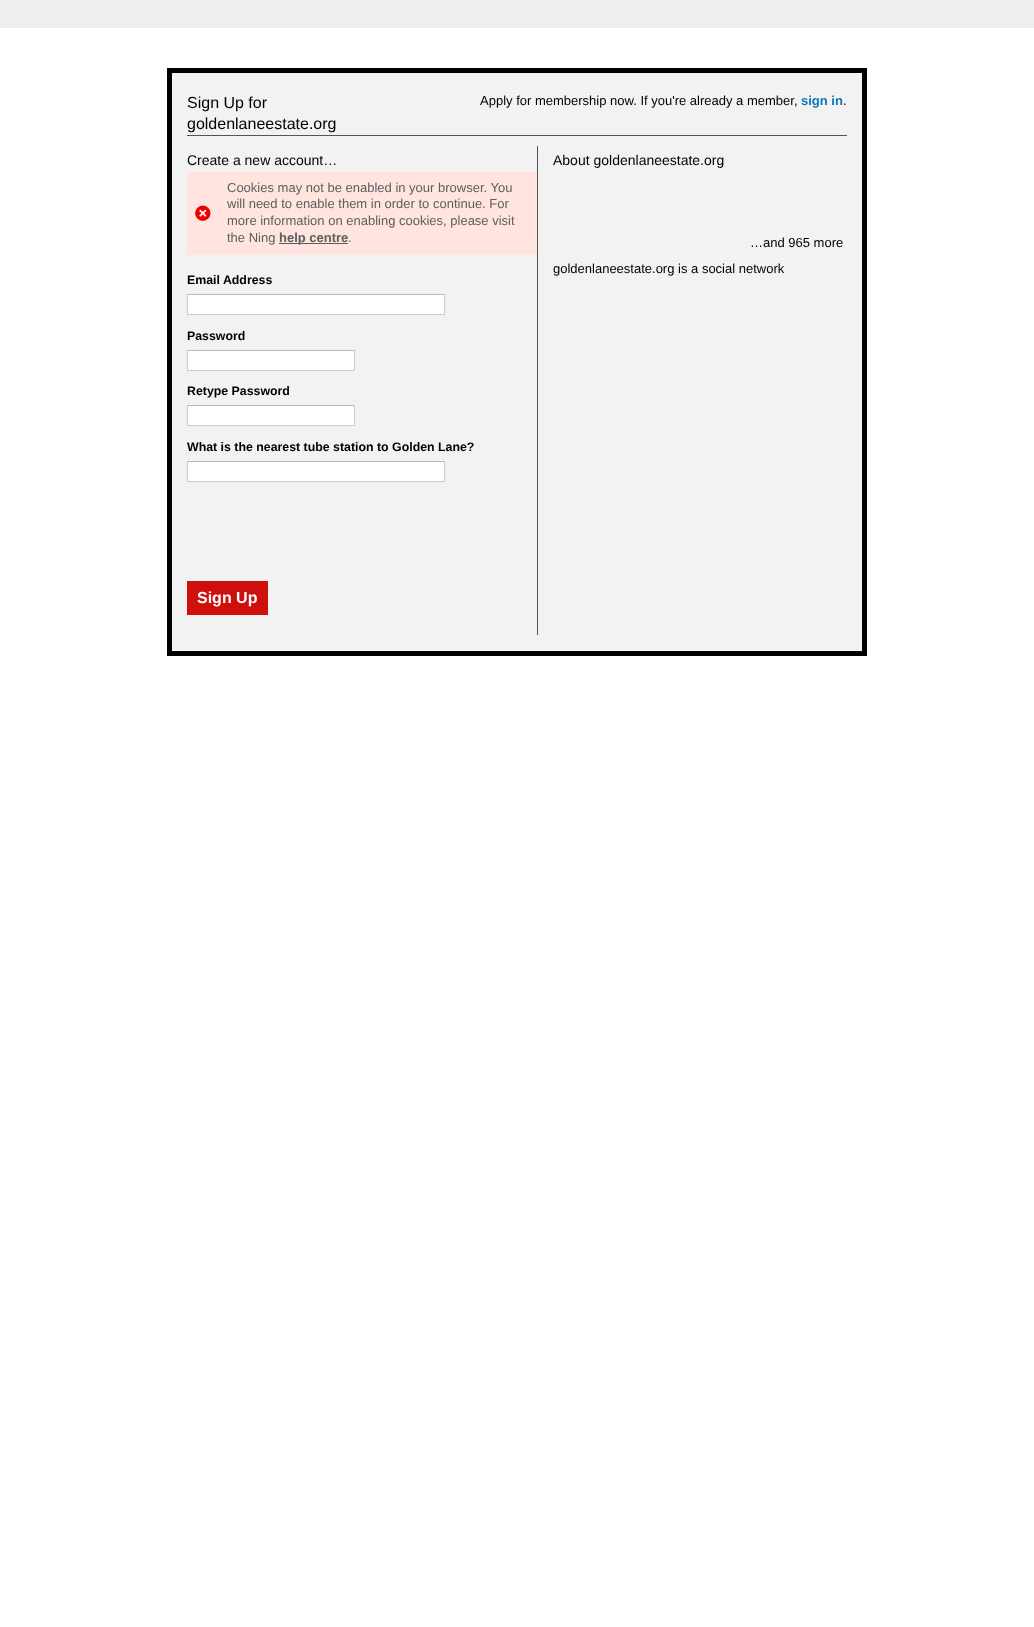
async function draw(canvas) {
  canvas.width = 1034
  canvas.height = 1627
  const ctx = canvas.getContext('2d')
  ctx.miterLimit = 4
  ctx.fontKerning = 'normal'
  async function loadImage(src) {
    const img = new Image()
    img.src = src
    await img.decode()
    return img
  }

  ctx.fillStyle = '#fff'
  ctx.fillRect(0, 0, 1034, 1627)
  ctx.fillStyle = '#eee'
  ctx.fillRect(0, 0, 1034, 28)
  ctx.strokeStyle = '#000'
  ctx.lineWidth = 5
  ctx.strokeRect(169.5, 70.5, 695, 583)
  ctx.fillStyle = '#f2f2f2'
  ctx.fillRect(172, 73, 690, 577)
  ctx.fillStyle = '#555'
  ctx.fillRect(187, 135, 660, 1)
  ctx.font = '16px Liberation Sans'
  ctx.fillStyle = '#000'
  ctx.fillText('Sign Up for', 187, 108)
  ctx.fillText('goldenlaneestate.org', 187, 129)
  ctx.font = '13px Liberation Sans'
  ctx.fillText('Apply for membership now. If you\'re already a member,', 480, 105)
  ctx.font = 'bold 13px Liberation Sans'
  ctx.fillStyle = '#0b76bd'
  ctx.fillText('sign in', 801, 105)
  ctx.font = '13px Liberation Sans'
  ctx.fillStyle = '#000'
  ctx.fillText('.', 843, 105)
  ctx.fillStyle = '#555'
  ctx.fillRect(537, 146, 1, 489)
  ctx.font = '14px Liberation Sans'
  ctx.fillStyle = '#000'
  ctx.fillText('Create a new account…', 187, 165)
  ctx.fillStyle = '#ffe4df'
  ctx.fillRect(187, 172, 350, 83)
  ctx.drawImage(await loadImage('image0.png'), 195, 205, 16, 16)
  ctx.font = '13px Liberation Sans'
  ctx.fillStyle = '#5e5e5e'
  ctx.fillText('Cookies may not be enabled in your browser. You', 227, 192)
  ctx.fillText('will need to enable them in order to continue. For', 227, 208)
  ctx.fillText('more information on enabling cookies, please visit', 227, 225)
  ctx.fillText('the Ning', 227, 242)
  ctx.fillRect(279, 243, 69, 1)
  ctx.font = 'bold 13px Liberation Sans'
  ctx.fillText('help centre', 279, 242)
  ctx.font = '13px Liberation Sans'
  ctx.fillText('.', 348, 242)
  ctx.font = 'bold 12.35px Liberation Sans'
  ctx.fillStyle = '#000'
  ctx.fillText('Email Address', 187, 284)
  ctx.fillStyle = '#fff'
  ctx.fillRect(188, 295, 256, 19)
  ctx.fillStyle = '#bbb'
  ctx.fillRect(187, 294, 258, 1)
  ctx.fillStyle = '#ccc'
  ctx.fillRect(444, 294, 1, 21)
  ctx.fillRect(187, 314, 258, 1)
  ctx.fillRect(187, 294, 1, 21)
  ctx.fillStyle = '#000'
  ctx.fillText('Password', 187, 340)
  ctx.fillStyle = '#fff'
  ctx.fillRect(188, 351, 166, 19)
  ctx.fillStyle = '#bbb'
  ctx.fillRect(187, 350, 168, 1)
  ctx.fillStyle = '#ccc'
  ctx.fillRect(354, 350, 1, 21)
  ctx.fillRect(187, 370, 168, 1)
  ctx.fillRect(187, 350, 1, 21)
  ctx.fillStyle = '#000'
  ctx.fillText('Retype Password', 187, 395)
  ctx.fillStyle = '#fff'
  ctx.fillRect(188, 406, 166, 19)
  ctx.fillStyle = '#bbb'
  ctx.fillRect(187, 405, 168, 1)
  ctx.fillStyle = '#ccc'
  ctx.fillRect(354, 405, 1, 21)
  ctx.fillRect(187, 425, 168, 1)
  ctx.fillRect(187, 405, 1, 21)
  ctx.fillStyle = '#000'
  ctx.fillText('What is the nearest tube station to Golden Lane?', 187, 451)
  ctx.fillStyle = '#fff'
  ctx.fillRect(188, 462, 256, 19)
  ctx.fillStyle = '#bbb'
  ctx.fillRect(187, 461, 258, 1)
  ctx.fillStyle = '#ccc'
  ctx.fillRect(444, 461, 1, 21)
  ctx.fillRect(187, 481, 258, 1)
  ctx.fillRect(187, 461, 1, 21)
  ctx.fillStyle = '#cf0f0b'
  ctx.fillRect(187, 581, 81, 34)
  ctx.font = 'bold 16px Liberation Sans'
  ctx.fillStyle = '#fff'
  ctx.fillText('Sign Up', 197, 603)
  ctx.font = '14px Liberation Sans'
  ctx.fillStyle = '#000'
  ctx.fillText('About goldenlaneestate.org', 553, 165)
  ctx.font = '13px Liberation Sans'
  ctx.fillText('…and 965 more', 750, 247)
  ctx.fillText('goldenlaneestate.org is a social network', 553, 273)
}

draw(document.querySelector('canvas'))
